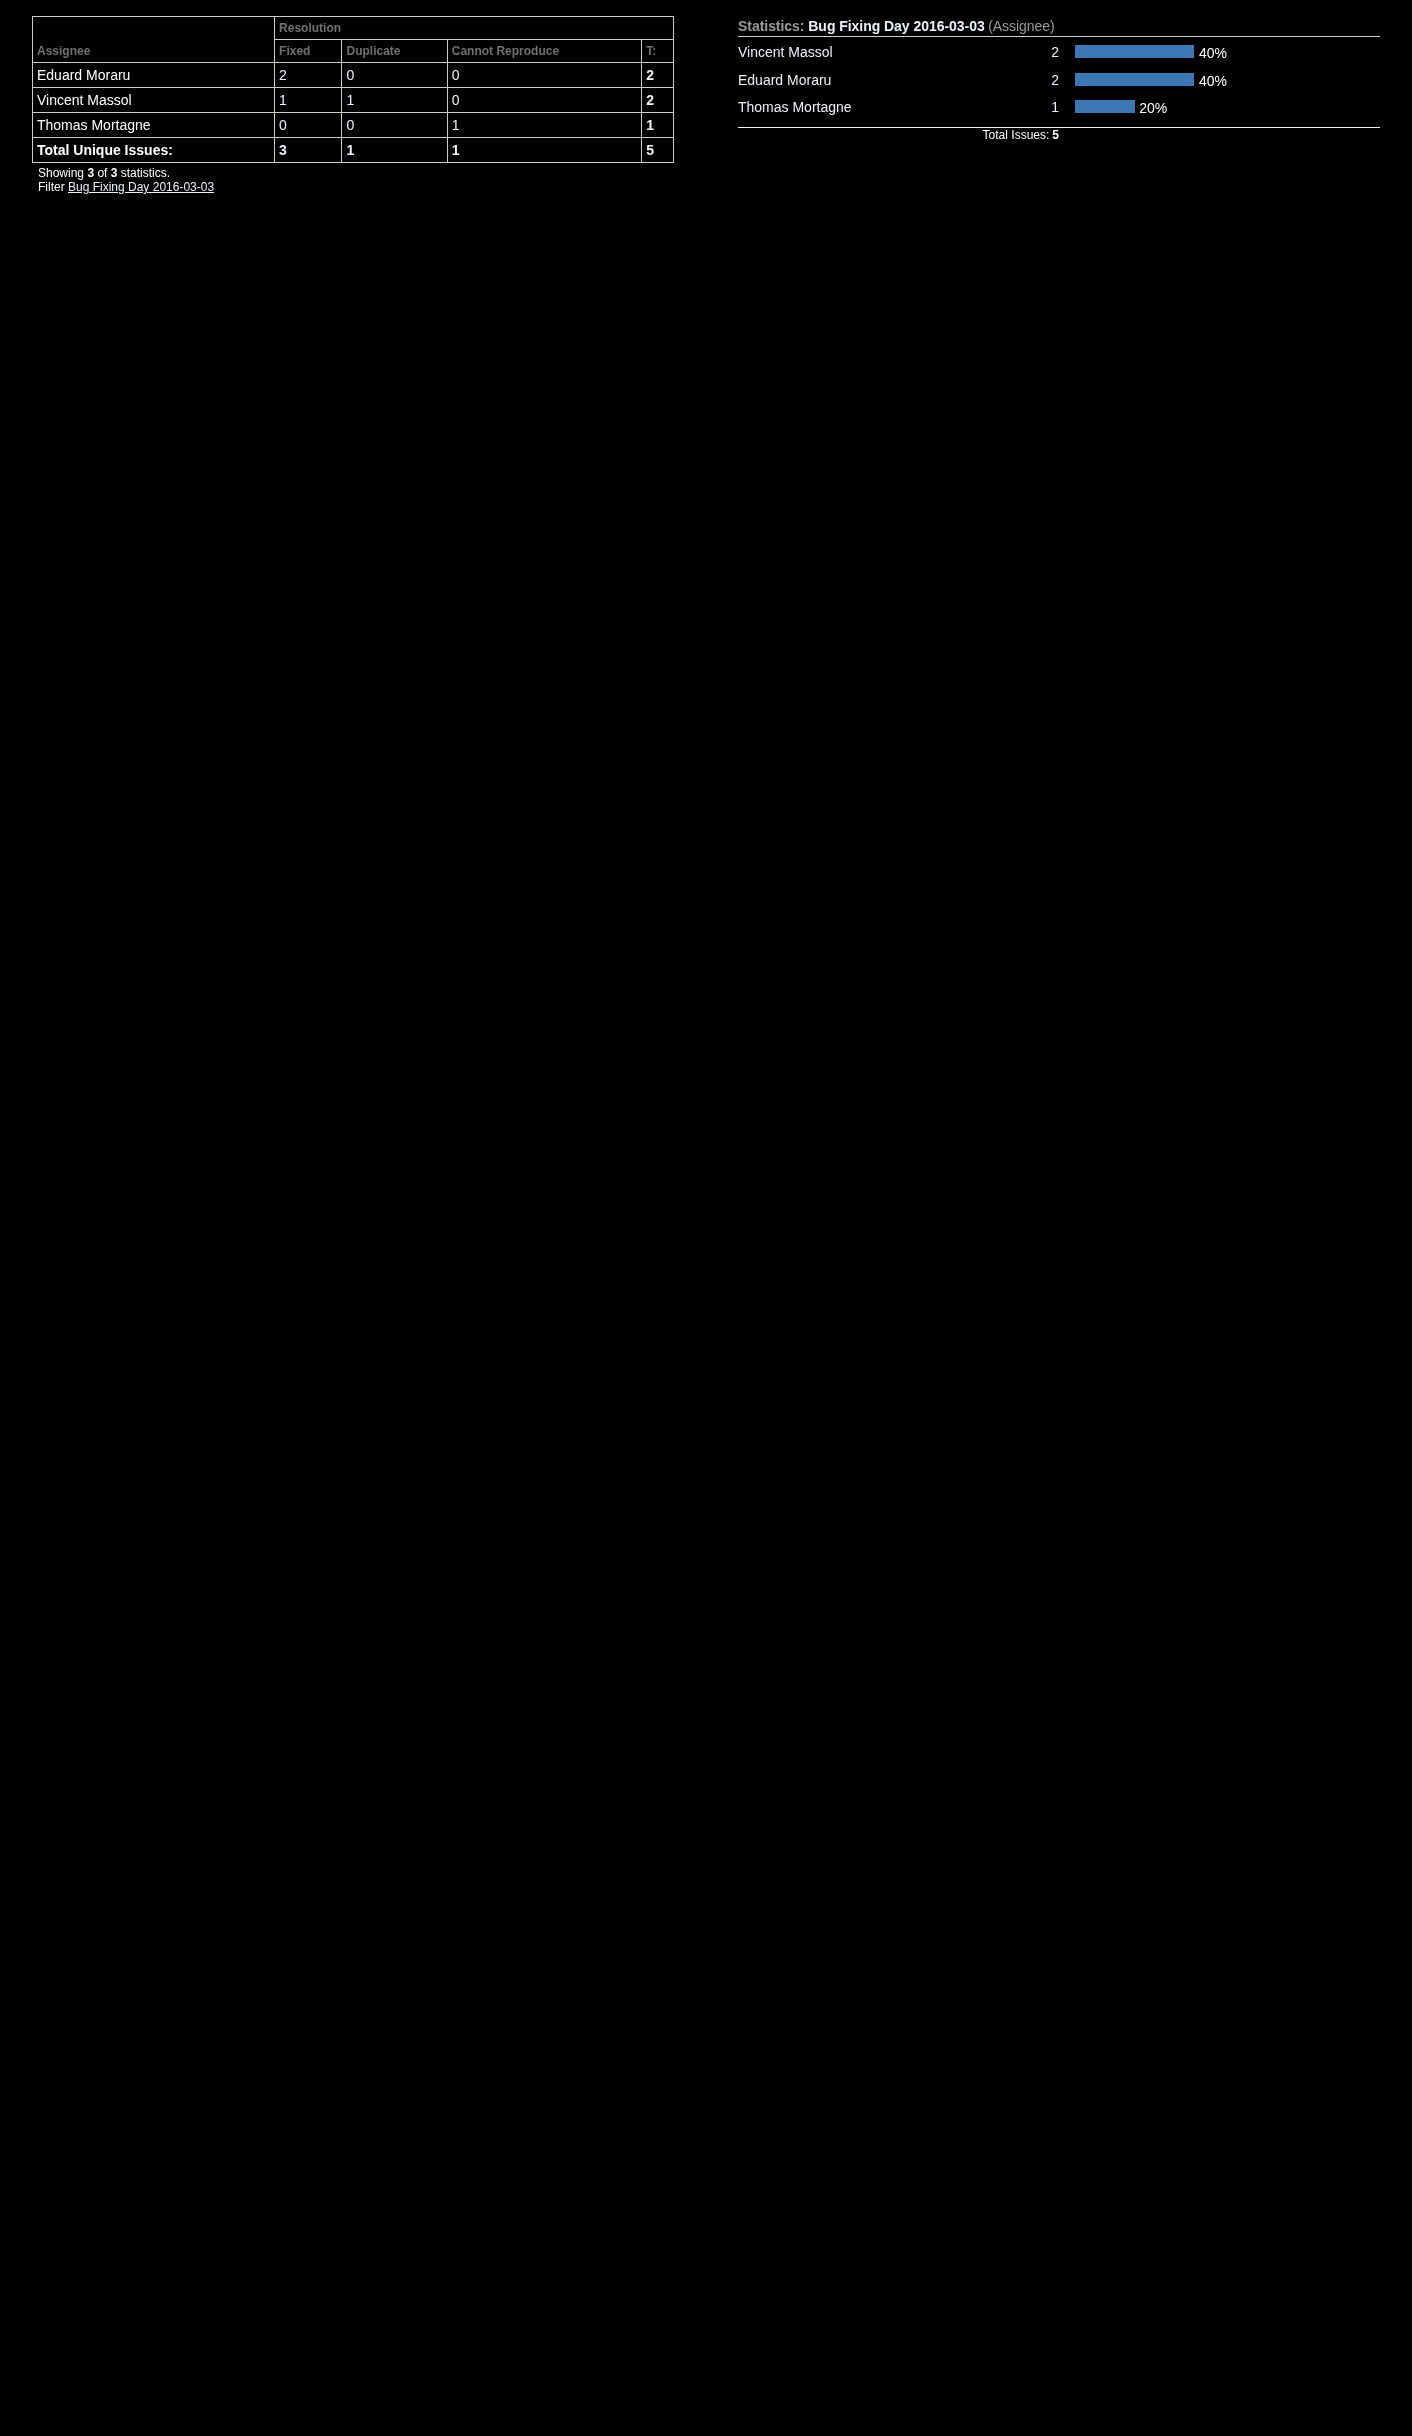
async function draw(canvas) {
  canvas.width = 1412
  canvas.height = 2436
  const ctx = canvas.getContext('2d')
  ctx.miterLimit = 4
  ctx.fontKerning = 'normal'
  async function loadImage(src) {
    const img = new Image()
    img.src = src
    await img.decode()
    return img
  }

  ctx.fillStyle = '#000'
  ctx.fillRect(0, 0, 1412, 2436)
  ctx.drawImage(await loadImage('image0.png'), 32, 16, 642, 178)
  ctx.drawImage(await loadImage('image1.png'), 738, 20, 642, 119)
}

draw(document.querySelector('canvas'))
